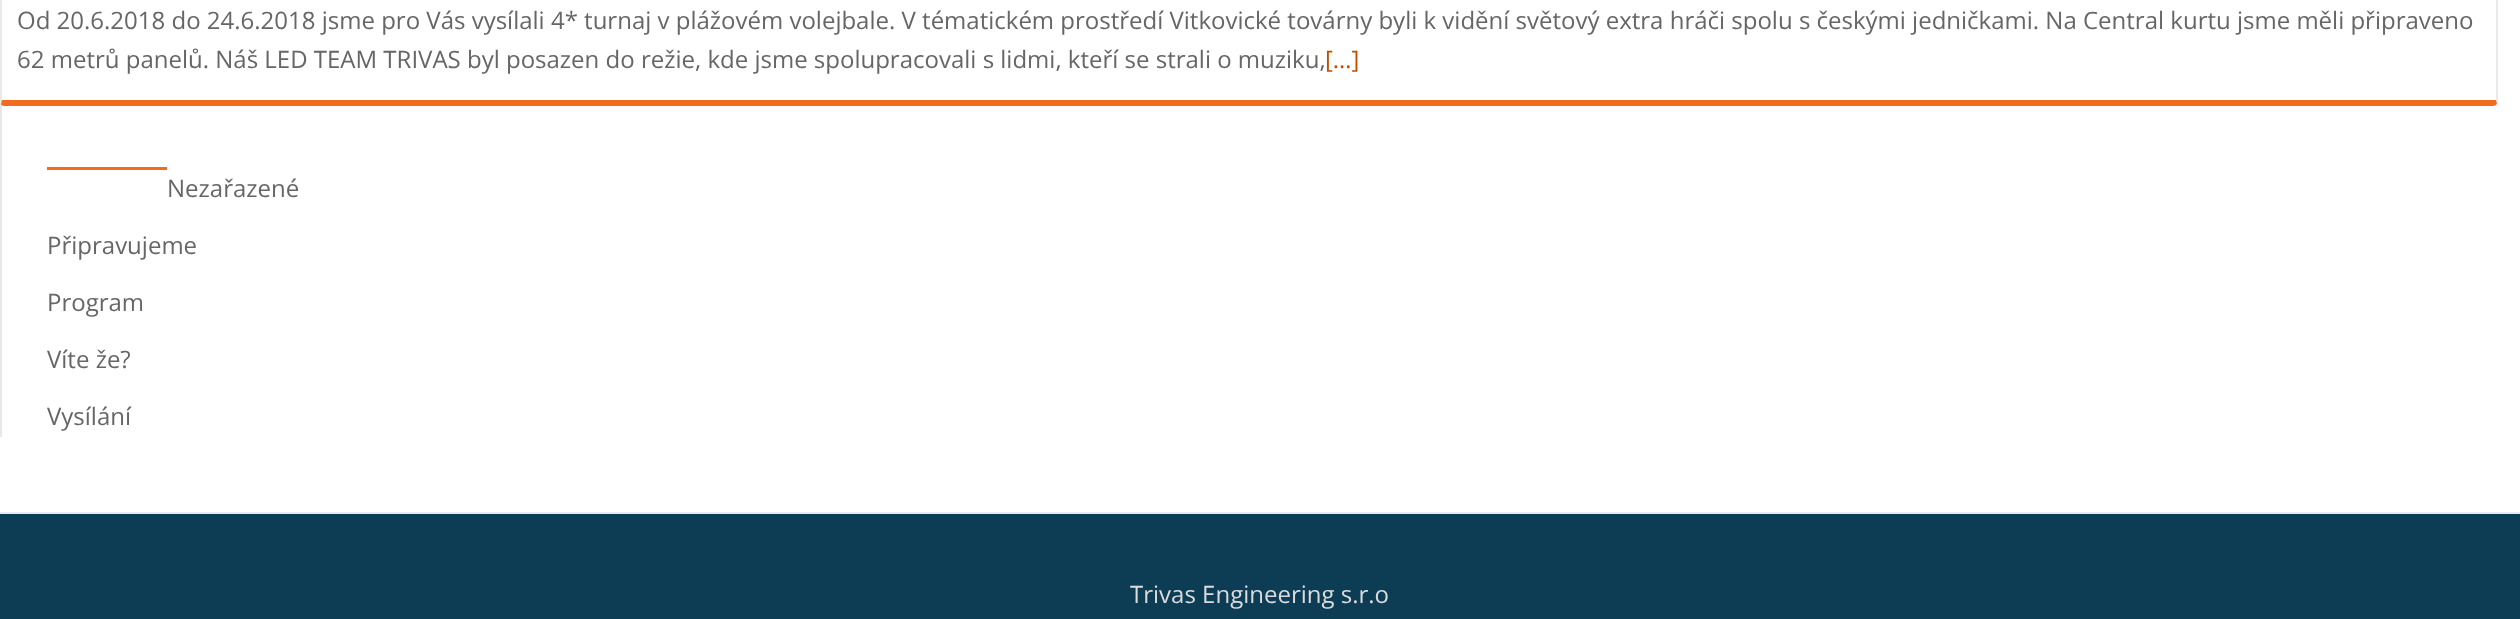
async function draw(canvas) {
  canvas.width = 2520
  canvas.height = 619
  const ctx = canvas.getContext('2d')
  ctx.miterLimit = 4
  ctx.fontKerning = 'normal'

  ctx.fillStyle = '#fff'
  ctx.fillRect(0, 0, 2520, 619)
  ctx.fillStyle = '#eaeaea'
  ctx.beginPath()
  ctx.moveTo(2498, 103)
  ctx.lineTo(2497, 104)
  ctx.lineTo(2496, 100)
  ctx.lineTo(2496, -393)
  ctx.lineTo(2495, -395)
  ctx.lineTo(2496, -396)
  ctx.lineTo(2498, -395)
  ctx.closePath()
  ctx.fill()
  ctx.fillStyle = '#e7e7e7'
  ctx.fillRect(0, 98, 2, 339)
  ctx.fillStyle = '#f16c20'
  ctx.beginPath()
  ctx.moveTo(2497, 104)
  ctx.bezierCurveTo(2496, 105, 2494, 106, 2493, 106)
  ctx.lineTo(4, 106)
  ctx.bezierCurveTo(3, 106, 1, 105, 1, 104)
  ctx.lineTo(2, 98)
  ctx.lineTo(2, 100)
  ctx.lineTo(2496, 100)
  ctx.closePath()
  ctx.fill()
  ctx.fillStyle = '#eaeaea'
  ctx.beginPath()
  ctx.moveTo(0, -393)
  ctx.lineTo(0, 102)
  ctx.lineTo(1, 104)
  ctx.lineTo(2, 98)
  ctx.lineTo(2, -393)
  ctx.lineTo(2, -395)
  ctx.lineTo(1, -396)
  ctx.closePath()
  ctx.fill()
  ctx.font = '24px Open Sans'
  ctx.fillStyle = '#666'
  ctx.fillText('Od 20.6.2018 do 24.6.2018 jsme pro Vás vysílali 4* turnaj v plážovém volejbale. V tématickém prostředí Vitkovické továrny byli k vidění světový extra hráči spolu s českými jedničkami. Na Central kurtu jsme měli připraveno', 17, 29)
  ctx.fillText('62 metrů panelů. Náš LED TEAM TRIVAS byl posazen do režie, kde jsme spolupracovali s lidmi, kteří se strali o muziku,', 17, 68)
  ctx.fillStyle = '#be5000'
  ctx.fillText('[…]', 1325, 68)
  ctx.fillStyle = '#f16c20'
  ctx.fillRect(47, 167, 120, 3)
  ctx.fillStyle = '#666'
  ctx.fillText('Nezařazené', 167, 197)
  ctx.fillText('Připravujeme', 47, 254)
  ctx.fillText('Program', 47, 311)
  ctx.fillText('Víte že?', 47, 368)
  ctx.fillText('Vysílání', 47, 425)
  ctx.fillStyle = '#0d3c55'
  ctx.fillRect(0, 514, 2520, 105)
  ctx.fillStyle = '#eaebec'
  ctx.fillRect(0, 512, 2520, 2)
  ctx.fillStyle = '#dbdbdb'
  ctx.fillText('Trivas Engineering s.r.o', 1130, 603)
}

draw(document.querySelector('canvas'))
